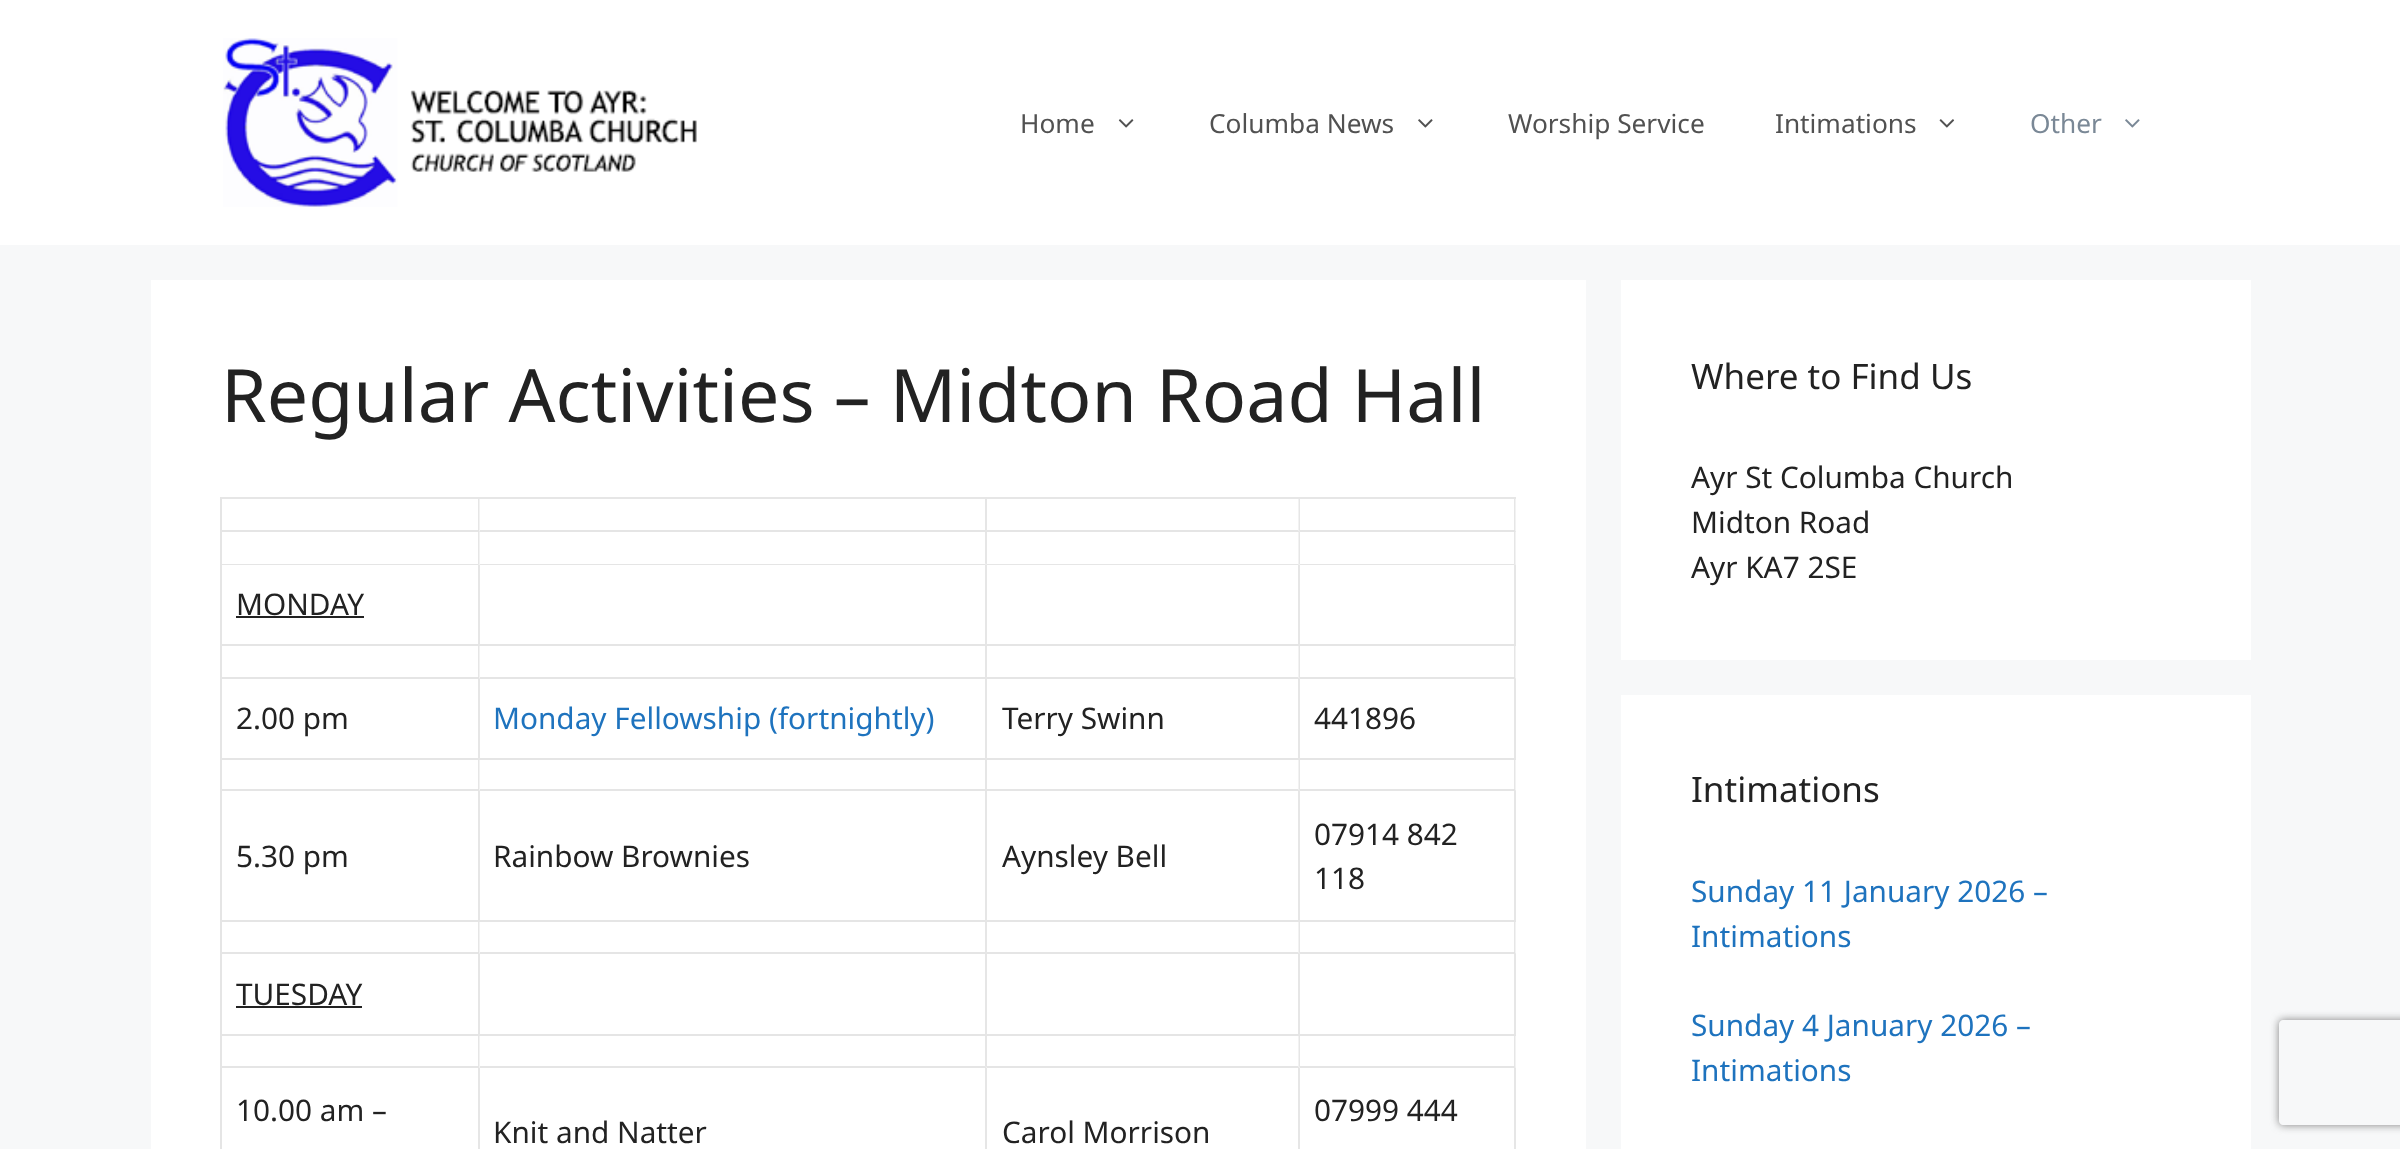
async function draw(canvas) {
  canvas.width = 2400
  canvas.height = 1149
  const ctx = canvas.getContext('2d')
  ctx.miterLimit = 4
  ctx.fontKerning = 'normal'
  async function loadImage(src) {
    const img = new Image()
    img.src = src
    await img.decode()
    return img
  }

  ctx.fillStyle = '#f7f8f9'
  ctx.fillRect(0, 0, 2400, 1149)
  ctx.fillStyle = '#fff'
  ctx.fillRect(0, 0, 2400, 245)
  ctx.drawImage(await loadImage('image0.png'), 223, 38, 474, 169)
  ctx.font = '26.25px Noto Sans'
  ctx.fillStyle = '#515151'
  ctx.fillText('Home', 1020, 133)
  ctx.drawImage(await loadImage('image1.png'), 1118, 119, 16, 9)
  ctx.fillText('Columba News', 1209, 133)
  ctx.drawImage(await loadImage('image2.png'), 1418, 119, 15, 9)
  ctx.fillText('Worship Service', 1508, 133)
  ctx.fillText('Intimations', 1775, 133)
  ctx.drawImage(await loadImage('image3.png'), 1939, 119, 16, 9)
  ctx.fillStyle = '#7a8896'
  ctx.fillText('Other', 2030, 133)
  ctx.drawImage(await loadImage('image4.png'), 2125, 119, 15, 9)
  ctx.fillStyle = '#fff'
  ctx.fillRect(151, 280, 1435, 869)
  ctx.font = '73.5px Noto Sans'
  ctx.fillStyle = '#222'
  ctx.fillText('Regular Activities – Midton Road Hall', 221, 422)
  ctx.fillStyle = '#e6e6e6'
  ctx.beginPath()
  ctx.moveTo(220, 497)
  ctx.lineTo(1516, 497)
  ctx.lineTo(1516, 499)
  ctx.lineTo(222, 499)
  ctx.closePath()
  ctx.fill()
  ctx.fillStyle = '#0000001a'
  ctx.beginPath()
  ctx.moveTo(220, 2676)
  ctx.lineTo(220, 497)
  ctx.lineTo(222, 499)
  ctx.lineTo(222, 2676)
  ctx.closePath()
  ctx.fill()
  ctx.fillStyle = '#e6e6e6'
  ctx.beginPath()
  ctx.moveTo(479.5, 499)
  ctx.lineTo(479.5, 532)
  ctx.lineTo(478, 530)
  ctx.lineTo(478, 499)
  ctx.closePath()
  ctx.fill()
  ctx.fillStyle = '#0000001a'
  ctx.beginPath()
  ctx.moveTo(480, 532)
  ctx.lineTo(222, 532)
  ctx.lineTo(222, 530)
  ctx.lineTo(478, 530)
  ctx.closePath()
  ctx.fill()
  ctx.fillStyle = '#e6e6e6'
  ctx.beginPath()
  ctx.moveTo(987, 499)
  ctx.lineTo(987, 532)
  ctx.lineTo(985, 530)
  ctx.lineTo(985, 499)
  ctx.closePath()
  ctx.fill()
  ctx.fillStyle = '#0000001a'
  ctx.beginPath()
  ctx.moveTo(987, 532)
  ctx.lineTo(480, 532)
  ctx.lineTo(480, 530)
  ctx.lineTo(985, 530)
  ctx.closePath()
  ctx.fill()
  ctx.fillStyle = '#e6e6e6'
  ctx.beginPath()
  ctx.moveTo(1300, 499)
  ctx.lineTo(1300, 532)
  ctx.lineTo(1298.5, 530)
  ctx.lineTo(1298.5, 499)
  ctx.closePath()
  ctx.fill()
  ctx.fillStyle = '#0000001a'
  ctx.beginPath()
  ctx.moveTo(1300, 532)
  ctx.lineTo(987, 532)
  ctx.lineTo(987, 530)
  ctx.lineTo(1298, 530)
  ctx.closePath()
  ctx.fill()
  ctx.fillStyle = '#e6e6e6'
  ctx.beginPath()
  ctx.moveTo(1515.5, 499)
  ctx.lineTo(1515.5, 532)
  ctx.lineTo(1514, 530)
  ctx.lineTo(1514, 499)
  ctx.closePath()
  ctx.fill()
  ctx.fillStyle = '#0000001a'
  ctx.beginPath()
  ctx.moveTo(1516, 532)
  ctx.lineTo(1300, 532)
  ctx.lineTo(1300, 530)
  ctx.lineTo(1514, 530)
  ctx.closePath()
  ctx.fill()
  ctx.fillStyle = '#e6e6e6'
  ctx.beginPath()
  ctx.moveTo(479.5, 532)
  ctx.lineTo(479.5, 565)
  ctx.lineTo(478, 563.5)
  ctx.lineTo(478, 532)
  ctx.closePath()
  ctx.fill()
  ctx.fillStyle = '#0000001a'
  ctx.beginPath()
  ctx.moveTo(480, 565)
  ctx.lineTo(222, 565)
  ctx.lineTo(222, 564)
  ctx.lineTo(478, 564)
  ctx.closePath()
  ctx.fill()
  ctx.fillStyle = '#e6e6e6'
  ctx.beginPath()
  ctx.moveTo(987, 532)
  ctx.lineTo(987, 565)
  ctx.lineTo(985, 563.5)
  ctx.lineTo(985, 532)
  ctx.closePath()
  ctx.fill()
  ctx.fillStyle = '#e5e5e5'
  ctx.beginPath()
  ctx.moveTo(987, 565)
  ctx.lineTo(480, 565)
  ctx.lineTo(480, 564)
  ctx.lineTo(985, 564)
  ctx.closePath()
  ctx.fill()
  ctx.fillStyle = '#e6e6e6'
  ctx.beginPath()
  ctx.moveTo(1300, 532)
  ctx.lineTo(1300, 565)
  ctx.lineTo(1298.5, 563.5)
  ctx.lineTo(1298.5, 532)
  ctx.closePath()
  ctx.fill()
  ctx.beginPath()
  ctx.moveTo(1300, 565)
  ctx.lineTo(987, 565)
  ctx.lineTo(987, 564)
  ctx.lineTo(1298, 564)
  ctx.closePath()
  ctx.fill()
  ctx.beginPath()
  ctx.moveTo(1515.5, 532)
  ctx.lineTo(1515.5, 565)
  ctx.lineTo(1514, 563.5)
  ctx.lineTo(1514, 532)
  ctx.closePath()
  ctx.fill()
  ctx.fillStyle = '#0000001a'
  ctx.beginPath()
  ctx.moveTo(1516, 565)
  ctx.lineTo(1300, 565)
  ctx.lineTo(1300, 564)
  ctx.lineTo(1514, 564)
  ctx.closePath()
  ctx.fill()
  ctx.fillStyle = '#e6e6e6'
  ctx.beginPath()
  ctx.moveTo(480, 565)
  ctx.lineTo(480, 646)
  ctx.lineTo(478, 644)
  ctx.lineTo(478, 565)
  ctx.closePath()
  ctx.fill()
  ctx.fillStyle = '#0000001a'
  ctx.beginPath()
  ctx.moveTo(480, 646)
  ctx.lineTo(222, 646)
  ctx.lineTo(222, 644)
  ctx.lineTo(478, 644)
  ctx.closePath()
  ctx.fill()
  ctx.font = '29.75px Noto Sans'
  ctx.fillStyle = '#222'
  ctx.fillText('MONDAY', 236, 615)
  ctx.fillRect(236, 616, 128, 2)
  ctx.fillStyle = '#e6e6e6'
  ctx.beginPath()
  ctx.moveTo(987, 565)
  ctx.lineTo(987, 646)
  ctx.lineTo(985, 644)
  ctx.lineTo(985, 565)
  ctx.closePath()
  ctx.fill()
  ctx.fillStyle = '#0000001a'
  ctx.beginPath()
  ctx.moveTo(987, 646)
  ctx.lineTo(480, 646)
  ctx.lineTo(480, 644)
  ctx.lineTo(985, 644)
  ctx.closePath()
  ctx.fill()
  ctx.fillStyle = '#e6e6e6'
  ctx.beginPath()
  ctx.moveTo(1300, 565)
  ctx.lineTo(1300, 646)
  ctx.lineTo(1298, 644)
  ctx.lineTo(1298, 565)
  ctx.closePath()
  ctx.fill()
  ctx.fillStyle = '#0000001a'
  ctx.beginPath()
  ctx.moveTo(1300, 646)
  ctx.lineTo(987, 646)
  ctx.lineTo(987, 644)
  ctx.lineTo(1298, 644)
  ctx.closePath()
  ctx.fill()
  ctx.fillStyle = '#e6e6e6'
  ctx.beginPath()
  ctx.moveTo(1516, 565)
  ctx.lineTo(1516, 646)
  ctx.lineTo(1514, 644)
  ctx.lineTo(1514, 565)
  ctx.closePath()
  ctx.fill()
  ctx.fillStyle = '#0000001a'
  ctx.beginPath()
  ctx.moveTo(1516, 646)
  ctx.lineTo(1300, 646)
  ctx.lineTo(1300, 644)
  ctx.lineTo(1514, 644)
  ctx.closePath()
  ctx.fill()
  ctx.fillStyle = '#e6e6e6'
  ctx.beginPath()
  ctx.moveTo(479.5, 646)
  ctx.lineTo(479.5, 679)
  ctx.lineTo(478, 677)
  ctx.lineTo(478, 646)
  ctx.closePath()
  ctx.fill()
  ctx.fillStyle = '#0000001a'
  ctx.beginPath()
  ctx.moveTo(480, 679)
  ctx.lineTo(222, 679)
  ctx.lineTo(222, 677)
  ctx.lineTo(478, 677)
  ctx.closePath()
  ctx.fill()
  ctx.fillStyle = '#e6e6e6'
  ctx.beginPath()
  ctx.moveTo(987, 646)
  ctx.lineTo(987, 679)
  ctx.lineTo(985, 677)
  ctx.lineTo(985, 646)
  ctx.closePath()
  ctx.fill()
  ctx.fillStyle = '#0000001a'
  ctx.beginPath()
  ctx.moveTo(987, 679)
  ctx.lineTo(480, 679)
  ctx.lineTo(480, 677)
  ctx.lineTo(985, 677)
  ctx.closePath()
  ctx.fill()
  ctx.fillStyle = '#e6e6e6'
  ctx.beginPath()
  ctx.moveTo(1300, 646)
  ctx.lineTo(1300, 679)
  ctx.lineTo(1298.5, 677)
  ctx.lineTo(1298.5, 646)
  ctx.closePath()
  ctx.fill()
  ctx.fillStyle = '#0000001a'
  ctx.beginPath()
  ctx.moveTo(1300, 679)
  ctx.lineTo(987, 679)
  ctx.lineTo(987, 677)
  ctx.lineTo(1298, 677)
  ctx.closePath()
  ctx.fill()
  ctx.fillStyle = '#e6e6e6'
  ctx.beginPath()
  ctx.moveTo(1515.5, 646)
  ctx.lineTo(1515.5, 679)
  ctx.lineTo(1514, 677)
  ctx.lineTo(1514, 646)
  ctx.closePath()
  ctx.fill()
  ctx.fillStyle = '#0000001a'
  ctx.beginPath()
  ctx.moveTo(1516, 679)
  ctx.lineTo(1300, 679)
  ctx.lineTo(1300, 677)
  ctx.lineTo(1514, 677)
  ctx.closePath()
  ctx.fill()
  ctx.fillStyle = '#e6e6e6'
  ctx.beginPath()
  ctx.moveTo(480, 679)
  ctx.lineTo(480, 760)
  ctx.lineTo(478, 758)
  ctx.lineTo(478, 679)
  ctx.closePath()
  ctx.fill()
  ctx.fillStyle = '#0000001a'
  ctx.beginPath()
  ctx.moveTo(480, 760)
  ctx.lineTo(222, 760)
  ctx.lineTo(222, 758)
  ctx.lineTo(478, 758)
  ctx.closePath()
  ctx.fill()
  ctx.fillStyle = '#222'
  ctx.fillText('2.00 pm', 236, 729)
  ctx.fillStyle = '#e6e6e6'
  ctx.beginPath()
  ctx.moveTo(987, 679)
  ctx.lineTo(987, 760)
  ctx.lineTo(985, 758)
  ctx.lineTo(985, 679)
  ctx.closePath()
  ctx.fill()
  ctx.fillStyle = '#0000001a'
  ctx.beginPath()
  ctx.moveTo(987, 760)
  ctx.lineTo(480, 760)
  ctx.lineTo(480, 758)
  ctx.lineTo(985, 758)
  ctx.closePath()
  ctx.fill()
  ctx.fillStyle = '#1e73be'
  ctx.fillText('Monday Fellowship (fortnightly)', 493, 729)
  ctx.fillStyle = '#e6e6e6'
  ctx.beginPath()
  ctx.moveTo(1300, 679)
  ctx.lineTo(1300, 760)
  ctx.lineTo(1298, 758)
  ctx.lineTo(1298, 679)
  ctx.closePath()
  ctx.fill()
  ctx.fillStyle = '#0000001a'
  ctx.beginPath()
  ctx.moveTo(1300, 760)
  ctx.lineTo(987, 760)
  ctx.lineTo(987, 758)
  ctx.lineTo(1298, 758)
  ctx.closePath()
  ctx.fill()
  ctx.fillStyle = '#222'
  ctx.fillText('Terry Swinn', 1002, 729)
  ctx.fillStyle = '#e6e6e6'
  ctx.beginPath()
  ctx.moveTo(1516, 679)
  ctx.lineTo(1516, 760)
  ctx.lineTo(1514, 758)
  ctx.lineTo(1514, 679)
  ctx.closePath()
  ctx.fill()
  ctx.fillStyle = '#0000001a'
  ctx.beginPath()
  ctx.moveTo(1516, 760)
  ctx.lineTo(1300, 760)
  ctx.lineTo(1300, 758)
  ctx.lineTo(1514, 758)
  ctx.closePath()
  ctx.fill()
  ctx.fillStyle = '#222'
  ctx.fillText('441896', 1314, 729)
  ctx.fillStyle = '#e6e6e6'
  ctx.beginPath()
  ctx.moveTo(479.5, 759.5)
  ctx.lineTo(479.5, 791)
  ctx.lineTo(478, 789)
  ctx.lineTo(478, 759.5)
  ctx.closePath()
  ctx.fill()
  ctx.fillStyle = '#0000001a'
  ctx.beginPath()
  ctx.moveTo(480, 791)
  ctx.lineTo(222, 791)
  ctx.lineTo(222, 789)
  ctx.lineTo(478, 789)
  ctx.closePath()
  ctx.fill()
  ctx.fillStyle = '#e6e6e6'
  ctx.beginPath()
  ctx.moveTo(987, 759.5)
  ctx.lineTo(987, 791)
  ctx.lineTo(985, 789)
  ctx.lineTo(985, 759.5)
  ctx.closePath()
  ctx.fill()
  ctx.fillStyle = '#0000001a'
  ctx.beginPath()
  ctx.moveTo(987, 791)
  ctx.lineTo(480, 791)
  ctx.lineTo(480, 789)
  ctx.lineTo(985, 789)
  ctx.closePath()
  ctx.fill()
  ctx.fillStyle = '#e6e6e6'
  ctx.beginPath()
  ctx.moveTo(1300, 759.5)
  ctx.lineTo(1300, 791)
  ctx.lineTo(1298.5, 789)
  ctx.lineTo(1298.5, 759.5)
  ctx.closePath()
  ctx.fill()
  ctx.fillStyle = '#0000001a'
  ctx.beginPath()
  ctx.moveTo(1300, 791)
  ctx.lineTo(987, 791)
  ctx.lineTo(987, 789)
  ctx.lineTo(1298, 789)
  ctx.closePath()
  ctx.fill()
  ctx.fillStyle = '#e6e6e6'
  ctx.beginPath()
  ctx.moveTo(1515.5, 759.5)
  ctx.lineTo(1515.5, 791)
  ctx.lineTo(1514, 789)
  ctx.lineTo(1514, 759.5)
  ctx.closePath()
  ctx.fill()
  ctx.fillStyle = '#0000001a'
  ctx.beginPath()
  ctx.moveTo(1516, 791)
  ctx.lineTo(1300, 791)
  ctx.lineTo(1300, 789)
  ctx.lineTo(1514, 789)
  ctx.closePath()
  ctx.fill()
  ctx.fillStyle = '#e6e6e6'
  ctx.beginPath()
  ctx.moveTo(480, 791)
  ctx.lineTo(480, 922)
  ctx.lineTo(478, 920)
  ctx.lineTo(478, 791)
  ctx.closePath()
  ctx.fill()
  ctx.fillStyle = '#0000001a'
  ctx.beginPath()
  ctx.moveTo(480, 922)
  ctx.lineTo(222, 922)
  ctx.lineTo(222, 920)
  ctx.lineTo(478, 920)
  ctx.closePath()
  ctx.fill()
  ctx.fillStyle = '#222'
  ctx.fillText('5.30 pm', 236, 867)
  ctx.fillStyle = '#e6e6e6'
  ctx.beginPath()
  ctx.moveTo(987, 791)
  ctx.lineTo(987, 922)
  ctx.lineTo(985, 920)
  ctx.lineTo(985, 791)
  ctx.closePath()
  ctx.fill()
  ctx.fillStyle = '#0000001a'
  ctx.beginPath()
  ctx.moveTo(987, 922)
  ctx.lineTo(480, 922)
  ctx.lineTo(480, 920)
  ctx.lineTo(985, 920)
  ctx.closePath()
  ctx.fill()
  ctx.fillStyle = '#222'
  ctx.fillText('Rainbow Brownies', 493, 867)
  ctx.fillStyle = '#e6e6e6'
  ctx.beginPath()
  ctx.moveTo(1300, 791)
  ctx.lineTo(1300, 922)
  ctx.lineTo(1298, 920)
  ctx.lineTo(1298, 791)
  ctx.closePath()
  ctx.fill()
  ctx.fillStyle = '#0000001a'
  ctx.beginPath()
  ctx.moveTo(1300, 922)
  ctx.lineTo(987, 922)
  ctx.lineTo(987, 920)
  ctx.lineTo(1298, 920)
  ctx.closePath()
  ctx.fill()
  ctx.fillStyle = '#222'
  ctx.fillText('Aynsley Bell', 1002, 867)
  ctx.fillStyle = '#e6e6e6'
  ctx.beginPath()
  ctx.moveTo(1516, 791)
  ctx.lineTo(1516, 922)
  ctx.lineTo(1514, 920)
  ctx.lineTo(1514, 791)
  ctx.closePath()
  ctx.fill()
  ctx.fillStyle = '#0000001a'
  ctx.beginPath()
  ctx.moveTo(1516, 922)
  ctx.lineTo(1300, 922)
  ctx.lineTo(1300, 920)
  ctx.lineTo(1514, 920)
  ctx.closePath()
  ctx.fill()
  ctx.fillStyle = '#222'
  ctx.fillText('07914 842', 1314, 845)
  ctx.fillText('118', 1314, 889)
  ctx.fillStyle = '#e6e6e6'
  ctx.beginPath()
  ctx.moveTo(479.5, 922)
  ctx.lineTo(479.5, 954)
  ctx.lineTo(478, 952)
  ctx.lineTo(478, 922)
  ctx.closePath()
  ctx.fill()
  ctx.fillStyle = '#0000001a'
  ctx.beginPath()
  ctx.moveTo(480, 954)
  ctx.lineTo(222, 954)
  ctx.lineTo(222, 952)
  ctx.lineTo(478, 952)
  ctx.closePath()
  ctx.fill()
  ctx.fillStyle = '#e6e6e6'
  ctx.beginPath()
  ctx.moveTo(987, 922)
  ctx.lineTo(987, 954)
  ctx.lineTo(985, 952)
  ctx.lineTo(985, 922)
  ctx.closePath()
  ctx.fill()
  ctx.fillStyle = '#0000001a'
  ctx.beginPath()
  ctx.moveTo(987, 954)
  ctx.lineTo(480, 954)
  ctx.lineTo(480, 952)
  ctx.lineTo(985, 952)
  ctx.closePath()
  ctx.fill()
  ctx.fillStyle = '#e6e6e6'
  ctx.beginPath()
  ctx.moveTo(1300, 922)
  ctx.lineTo(1300, 954)
  ctx.lineTo(1298.5, 952)
  ctx.lineTo(1298.5, 922)
  ctx.closePath()
  ctx.fill()
  ctx.fillStyle = '#0000001a'
  ctx.beginPath()
  ctx.moveTo(1300, 954)
  ctx.lineTo(987, 954)
  ctx.lineTo(987, 952)
  ctx.lineTo(1298, 952)
  ctx.closePath()
  ctx.fill()
  ctx.fillStyle = '#e6e6e6'
  ctx.beginPath()
  ctx.moveTo(1515.5, 922)
  ctx.lineTo(1515.5, 954)
  ctx.lineTo(1514, 952)
  ctx.lineTo(1514, 922)
  ctx.closePath()
  ctx.fill()
  ctx.fillStyle = '#0000001a'
  ctx.beginPath()
  ctx.moveTo(1516, 954)
  ctx.lineTo(1300, 954)
  ctx.lineTo(1300, 952)
  ctx.lineTo(1514, 952)
  ctx.closePath()
  ctx.fill()
  ctx.fillStyle = '#e6e6e6'
  ctx.beginPath()
  ctx.moveTo(480, 954)
  ctx.lineTo(480, 1036)
  ctx.lineTo(478, 1034)
  ctx.lineTo(478, 954)
  ctx.closePath()
  ctx.fill()
  ctx.fillStyle = '#0000001a'
  ctx.beginPath()
  ctx.moveTo(480, 1036)
  ctx.lineTo(222, 1036)
  ctx.lineTo(222, 1034)
  ctx.lineTo(478, 1034)
  ctx.closePath()
  ctx.fill()
  ctx.fillStyle = '#222'
  ctx.fillText('TUESDAY', 236, 1005)
  ctx.fillRect(236, 1006, 126, 2)
  ctx.fillStyle = '#e6e6e6'
  ctx.beginPath()
  ctx.moveTo(987, 954)
  ctx.lineTo(987, 1036)
  ctx.lineTo(985, 1034)
  ctx.lineTo(985, 954)
  ctx.closePath()
  ctx.fill()
  ctx.fillStyle = '#0000001a'
  ctx.beginPath()
  ctx.moveTo(987, 1036)
  ctx.lineTo(480, 1036)
  ctx.lineTo(480, 1034)
  ctx.lineTo(985, 1034)
  ctx.closePath()
  ctx.fill()
  ctx.fillStyle = '#e6e6e6'
  ctx.beginPath()
  ctx.moveTo(1300, 954)
  ctx.lineTo(1300, 1036)
  ctx.lineTo(1298, 1034)
  ctx.lineTo(1298, 954)
  ctx.closePath()
  ctx.fill()
  ctx.fillStyle = '#0000001a'
  ctx.beginPath()
  ctx.moveTo(1300, 1036)
  ctx.lineTo(987, 1036)
  ctx.lineTo(987, 1034)
  ctx.lineTo(1298, 1034)
  ctx.closePath()
  ctx.fill()
  ctx.fillStyle = '#e6e6e6'
  ctx.beginPath()
  ctx.moveTo(1516, 954)
  ctx.lineTo(1516, 1036)
  ctx.lineTo(1514, 1034)
  ctx.lineTo(1514, 954)
  ctx.closePath()
  ctx.fill()
  ctx.fillStyle = '#0000001a'
  ctx.beginPath()
  ctx.moveTo(1516, 1036)
  ctx.lineTo(1300, 1036)
  ctx.lineTo(1300, 1034)
  ctx.lineTo(1514, 1034)
  ctx.closePath()
  ctx.fill()
  ctx.fillStyle = '#e6e6e6'
  ctx.beginPath()
  ctx.moveTo(479.5, 1036)
  ctx.lineTo(479.5, 1067.5)
  ctx.lineTo(478, 1066)
  ctx.lineTo(478, 1036)
  ctx.closePath()
  ctx.fill()
  ctx.fillStyle = '#0000001a'
  ctx.beginPath()
  ctx.moveTo(480, 1068)
  ctx.lineTo(222, 1068)
  ctx.lineTo(222, 1066)
  ctx.lineTo(478, 1066)
  ctx.closePath()
  ctx.fill()
  ctx.fillStyle = '#e6e6e6'
  ctx.beginPath()
  ctx.moveTo(987, 1036)
  ctx.lineTo(987, 1067.5)
  ctx.lineTo(985, 1066)
  ctx.lineTo(985, 1036)
  ctx.closePath()
  ctx.fill()
  ctx.fillStyle = '#0000001a'
  ctx.beginPath()
  ctx.moveTo(987, 1068)
  ctx.lineTo(480, 1068)
  ctx.lineTo(480, 1066)
  ctx.lineTo(985, 1066)
  ctx.closePath()
  ctx.fill()
  ctx.fillStyle = '#e6e6e6'
  ctx.beginPath()
  ctx.moveTo(1300, 1036)
  ctx.lineTo(1300, 1067.5)
  ctx.lineTo(1298.5, 1066)
  ctx.lineTo(1298.5, 1036)
  ctx.closePath()
  ctx.fill()
  ctx.fillStyle = '#0000001a'
  ctx.beginPath()
  ctx.moveTo(1300, 1068)
  ctx.lineTo(987, 1068)
  ctx.lineTo(987, 1066)
  ctx.lineTo(1298, 1066)
  ctx.closePath()
  ctx.fill()
  ctx.fillStyle = '#e6e6e6'
  ctx.beginPath()
  ctx.moveTo(1515.5, 1036)
  ctx.lineTo(1515.5, 1067.5)
  ctx.lineTo(1514, 1066)
  ctx.lineTo(1514, 1036)
  ctx.closePath()
  ctx.fill()
  ctx.fillStyle = '#0000001a'
  ctx.beginPath()
  ctx.moveTo(1516, 1068)
  ctx.lineTo(1300, 1068)
  ctx.lineTo(1300, 1066)
  ctx.lineTo(1514, 1066)
  ctx.closePath()
  ctx.fill()
  ctx.fillStyle = '#e6e6e6'
  ctx.beginPath()
  ctx.moveTo(480, 1068)
  ctx.lineTo(480, 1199)
  ctx.lineTo(478, 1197)
  ctx.lineTo(478, 1068)
  ctx.closePath()
  ctx.fill()
  ctx.fillStyle = '#222'
  ctx.fillText('10.00 am –', 236, 1121)
  ctx.fillStyle = '#e6e6e6'
  ctx.beginPath()
  ctx.moveTo(1516, 1068)
  ctx.lineTo(1516, 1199)
  ctx.lineTo(1514, 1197)
  ctx.lineTo(1514, 1068)
  ctx.closePath()
  ctx.fill()
  ctx.fillStyle = '#222'
  ctx.fillText('07999 444', 1314, 1121)
  ctx.fillStyle = '#e6e6e6'
  ctx.beginPath()
  ctx.moveTo(987, 1068)
  ctx.lineTo(987, 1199)
  ctx.lineTo(985, 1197)
  ctx.lineTo(985, 1068)
  ctx.closePath()
  ctx.fill()
  ctx.fillStyle = '#222'
  ctx.fillText('Knit and Natter', 493, 1143)
  ctx.fillStyle = '#e6e6e6'
  ctx.beginPath()
  ctx.moveTo(1300, 1068)
  ctx.lineTo(1300, 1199)
  ctx.lineTo(1298, 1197)
  ctx.lineTo(1298, 1068)
  ctx.closePath()
  ctx.fill()
  ctx.fillStyle = '#222'
  ctx.fillText('Carol Morrison', 1002, 1143)
  ctx.fillStyle = '#fff'
  ctx.fillRect(1621, 280, 630, 380)
  ctx.font = '35px Noto Sans'
  ctx.fillStyle = '#222'
  ctx.fillText('Where to Find Us', 1691, 389)
  ctx.font = '29.75px Noto Sans'
  ctx.fillText('Ayr St Columba Church', 1691, 488)
  ctx.fillText('Midton Road', 1691, 533)
  ctx.fillText('Ayr KA7 2SE', 1691, 578)
  ctx.fillStyle = '#fff'
  ctx.fillRect(1621, 695, 630, 454)
  ctx.font = '35px Noto Sans'
  ctx.fillStyle = '#222'
  ctx.fillText('Intimations', 1691, 802)
  ctx.font = '29.75px Noto Sans'
  ctx.fillStyle = '#1e73be'
  ctx.fillText('Sunday 11 January 2026 –', 1691, 902)
  ctx.fillText('Intimations', 1691, 947)
  ctx.fillText('Sunday 4 January 2026 –', 1691, 1036)
  ctx.fillText('Intimations', 1691, 1081)
  ctx.save()
  ctx.beginPath()
  ctx.moveTo(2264, 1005)
  ctx.lineTo(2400, 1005)
  ctx.lineTo(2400, 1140)
  ctx.lineTo(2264, 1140)
  ctx.closePath()
  ctx.moveTo(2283, 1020)
  ctx.lineTo(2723, 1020)
  ctx.bezierCurveTo(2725, 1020, 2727, 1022, 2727, 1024)
  ctx.lineTo(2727, 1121)
  ctx.bezierCurveTo(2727, 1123, 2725, 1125, 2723, 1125)
  ctx.lineTo(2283, 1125)
  ctx.bezierCurveTo(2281, 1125, 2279, 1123, 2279, 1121)
  ctx.lineTo(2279, 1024)
  ctx.bezierCurveTo(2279, 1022, 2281, 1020, 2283, 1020)
  ctx.closePath()
  ctx.clip('evenodd')
  ctx.fillStyle = '#808080'
  ctx.filter = 'blur(4.5px)'
  ctx.beginPath()
  ctx.roundRect(2279, 1020, 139, 105, 4)
  ctx.fill()
  ctx.filter = 'none'
  ctx.restore()
}

draw(document.querySelector('canvas'))
